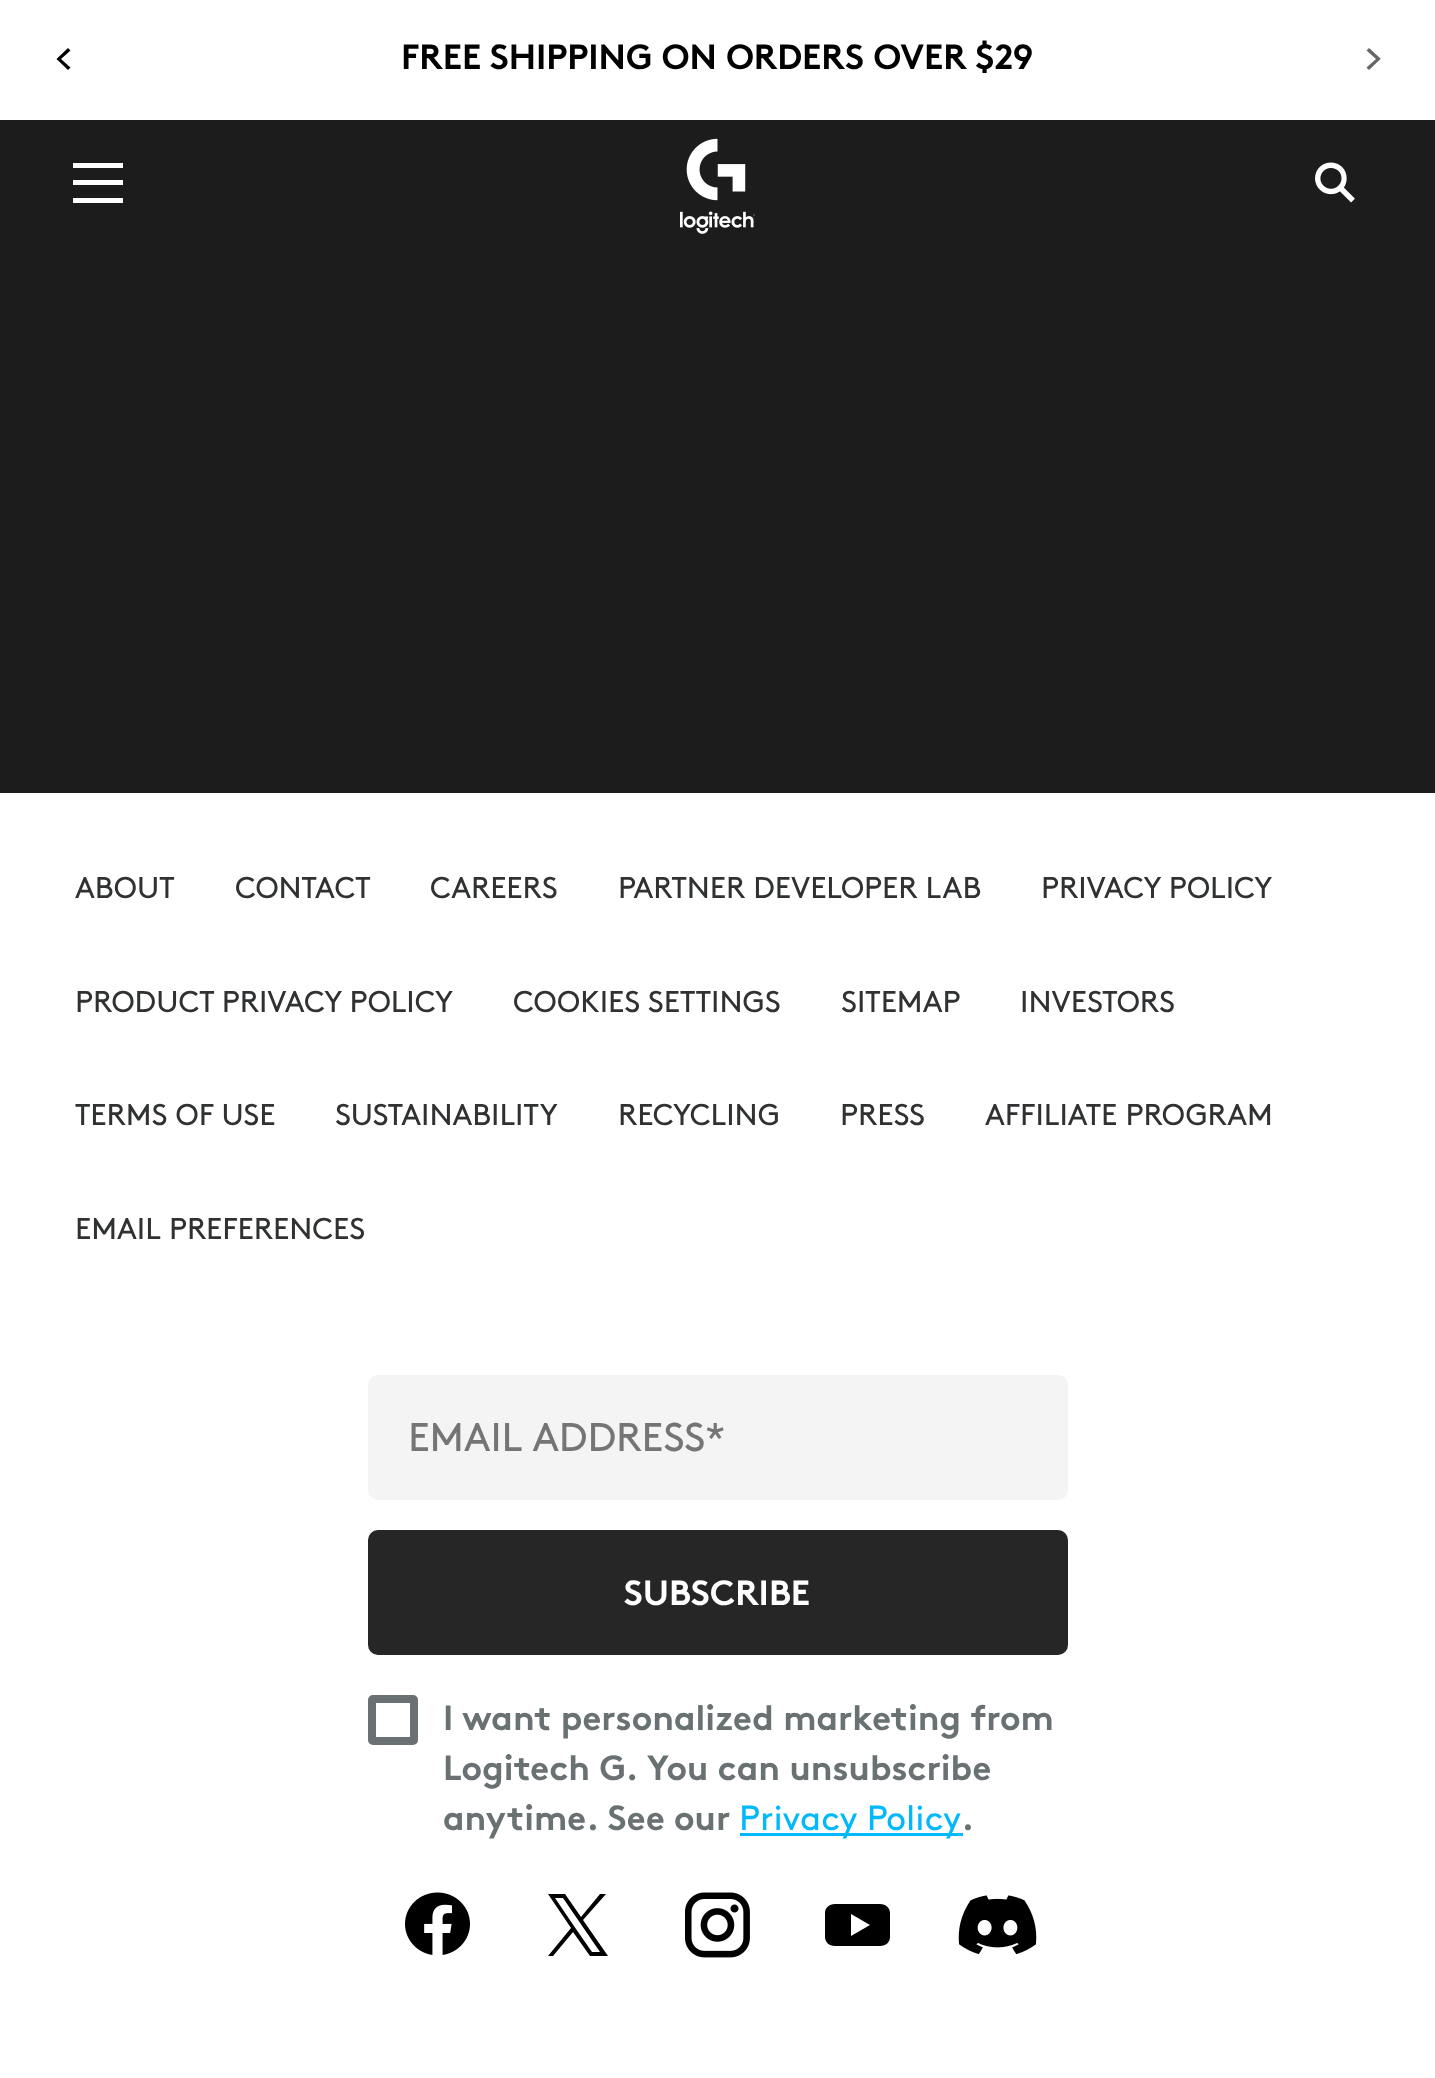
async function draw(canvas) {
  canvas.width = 1435
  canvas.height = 2078
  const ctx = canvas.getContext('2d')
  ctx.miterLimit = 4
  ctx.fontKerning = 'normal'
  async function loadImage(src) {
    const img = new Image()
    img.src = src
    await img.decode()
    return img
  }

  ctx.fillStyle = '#1c1c1c'
  ctx.fillRect(0, 0, 1435, 2078)
  ctx.fillStyle = '#fff'
  ctx.fillRect(0, 0, 1435, 120)
  ctx.font = 'bold 35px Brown'
  ctx.fillStyle = '#000'
  ctx.fillText('FREE SHIPPING ON ORDERS OVER $29', 401, 69)
  ctx.beginPath()
  ctx.moveTo(68, 70)
  ctx.lineTo(56.5, 59)
  ctx.lineTo(68, 48)
  ctx.lineTo(70.5, 50.5)
  ctx.lineTo(61, 59)
  ctx.lineTo(70.5, 67.5)
  ctx.closePath()
  ctx.fill()
  ctx.fillStyle = '#666'
  ctx.beginPath()
  ctx.moveTo(1369, 48)
  ctx.lineTo(1380.5, 58.5)
  ctx.lineTo(1380.5, 59)
  ctx.lineTo(1369, 70)
  ctx.lineTo(1366.5, 67.5)
  ctx.lineTo(1376, 59)
  ctx.lineTo(1366.5, 50.5)
  ctx.closePath()
  ctx.fill()
  ctx.fillStyle = '#fff'
  ctx.fillRect(73, 163, 50, 5)
  ctx.fillRect(73, 180, 50, 5)
  ctx.fillRect(73, 198, 50, 5)
  ctx.drawImage(await loadImage('image0.png'), 680, 138, 75, 96)
  ctx.drawImage(await loadImage('image1.png'), 1315, 162, 40, 41)
  ctx.fillRect(0, 793, 1435, 1285)
  ctx.font = '30px Brown'
  ctx.fillStyle = '#2f3132'
  ctx.fillText('ABOUT', 75, 898)
  ctx.fillText('CONTACT', 235, 898)
  ctx.fillText('CAREERS', 430, 898)
  ctx.fillText('PARTNER DEVELOPER LAB', 618, 898)
  ctx.fillText('PRIVACY POLICY', 1041, 898)
  ctx.fillText('PRODUCT PRIVACY POLICY', 75, 1012)
  ctx.fillText('COOKIES SETTINGS', 513, 1012)
  ctx.fillText('SITEMAP', 841, 1012)
  ctx.fillText('INVESTORS', 1020, 1012)
  ctx.fillText('TERMS OF USE', 75, 1125)
  ctx.fillText('SUSTAINABILITY', 335, 1125)
  ctx.fillText('RECYCLING', 618, 1125)
  ctx.fillText('PRESS', 840, 1125)
  ctx.fillText('AFFILIATE PROGRAM', 985, 1125)
  ctx.fillText('EMAIL PREFERENCES', 75, 1239)
  ctx.fillStyle = '#f4f4f4'
  ctx.beginPath()
  ctx.roundRect(368, 1375, 700, 125, 10)
  ctx.fill()
  ctx.font = '40px Brown'
  ctx.fillStyle = '#757575'
  ctx.fillText('EMAIL ADDRESS*', 408, 1451)
  ctx.fillStyle = '#262626'
  ctx.beginPath()
  ctx.roundRect(368, 1530, 700, 125, 10)
  ctx.fill()
  ctx.font = 'bold 35px Brown'
  ctx.fillStyle = '#fff'
  ctx.fillText('SUBSCRIBE', 624, 1605)
  ctx.beginPath()
  ctx.roundRect(372, 1699, 42, 42, 1)
  ctx.strokeStyle = '#697172'
  ctx.lineWidth = 8
  ctx.stroke()
  ctx.fillStyle = '#697172'
  ctx.fillText('I want personalized marketing from', 443, 1730)
  ctx.fillText('Logitech G. You can unsubscribe', 443, 1780)
  ctx.fillText('anytime. See our', 443, 1830)
  ctx.fillStyle = '#00b8fc'
  ctx.fillRect(740, 1833, 223, 3)
  ctx.font = '35px Brown'
  ctx.fillText('Privacy Policy', 739, 1830)
  ctx.font = 'bold 35px Brown'
  ctx.fillStyle = '#697172'
  ctx.fillText('.', 961, 1830)
  ctx.drawImage(await loadImage('image2.png'), 405, 1892, 65, 63)
  ctx.fillStyle = '#000'
  ctx.beginPath()
  ctx.moveTo(583, 1920)
  ctx.lineTo(606, 1894)
  ctx.lineTo(600, 1894)
  ctx.lineTo(581, 1917)
  ctx.lineTo(565, 1894)
  ctx.lineTo(548, 1894)
  ctx.lineTo(571, 1928)
  ctx.lineTo(548, 1956)
  ctx.lineTo(553, 1956)
  ctx.lineTo(573, 1932)
  ctx.lineTo(590, 1956)
  ctx.lineTo(608, 1956)
  ctx.closePath()
  ctx.moveTo(576, 1929)
  ctx.lineTo(555, 1898)
  ctx.lineTo(563, 1898)
  ctx.lineTo(600, 1952)
  ctx.lineTo(592, 1952)
  ctx.closePath()
  ctx.fill()
  ctx.drawImage(await loadImage('image3.png'), 685, 1892, 65, 66)
  ctx.beginPath()
  ctx.moveTo(880, 1904)
  ctx.bezierCurveTo(886, 1904, 890, 1908, 890, 1913)
  ctx.lineTo(890, 1937)
  ctx.bezierCurveTo(890, 1942, 886, 1946, 880, 1946)
  ctx.lineTo(835, 1946)
  ctx.bezierCurveTo(829, 1946, 825, 1942, 825, 1937)
  ctx.lineTo(825, 1913)
  ctx.bezierCurveTo(825, 1908, 829, 1904, 835, 1904)
  ctx.closePath()
  ctx.moveTo(851, 1914)
  ctx.lineTo(851, 1936)
  ctx.lineTo(870, 1925)
  ctx.closePath()
  ctx.fill('evenodd')
  ctx.drawImage(await loadImage('image4.png'), 958, 1895, 79, 60)
}

draw(document.querySelector('canvas'))
